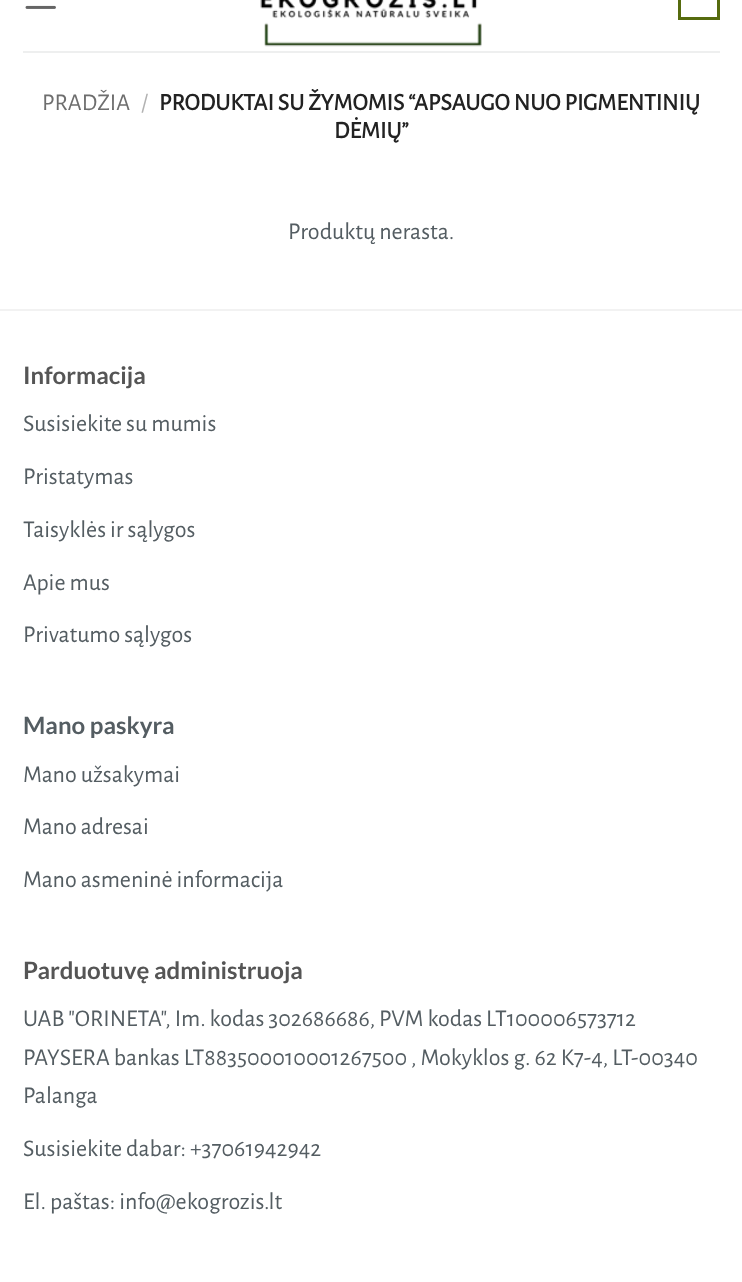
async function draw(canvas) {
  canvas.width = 742
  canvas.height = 1282
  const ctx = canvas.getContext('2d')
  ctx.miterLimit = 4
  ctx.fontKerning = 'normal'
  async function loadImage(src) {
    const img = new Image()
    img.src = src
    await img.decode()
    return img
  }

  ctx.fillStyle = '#fff'
  ctx.fillRect(0, 0, 742, 1282)
  ctx.drawImage(await loadImage('image0.png'), 25, 5, 31, 4)
  ctx.drawImage(await loadImage('image1.png'), 260, 0, 222, 47)
  ctx.strokeStyle = '#566b0e'
  ctx.lineWidth = 3
  ctx.strokeRect(679.5, -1.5, 39, 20)
  ctx.fillStyle = '#eeefef'
  ctx.fillRect(23, 51, 697, 2)
  ctx.font = '24px Alegreya Sans'
  ctx.fillStyle = '#6e6e6e'
  ctx.fillText('PRADŽIA', 42, 110)
  ctx.fillStyle = '#b2b2b2'
  ctx.fillText('/', 141, 110)
  ctx.font = 'bold 24px Alegreya Sans'
  ctx.fillStyle = '#222'
  ctx.fillText('PRODUKTAI SU ŽYMOMIS “APSAUGO NUO PIGMENTINIŲ', 159, 110)
  ctx.fillText('DĖMIŲ”', 334, 138)
  ctx.font = '24px Alegreya Sans'
  ctx.fillStyle = '#545d62'
  ctx.fillText('Produktų nerasta.', 288, 239)
  ctx.fillStyle = '#f2f2f2'
  ctx.fillRect(0, 309, 742, 2)
  ctx.font = 'bold 24px Lato'
  ctx.fillStyle = '#555'
  ctx.fillText('Informacija', 23, 384)
  ctx.font = '24px Alegreya Sans'
  ctx.fillStyle = '#545d62'
  ctx.fillText('Susisiekite su mumis', 23, 431)
  ctx.fillText('Pristatymas', 23, 484)
  ctx.fillText('Taisyklės ir sąlygos', 23, 537)
  ctx.fillText('Apie mus', 23, 590)
  ctx.fillText('Privatumo sąlygos', 23, 642)
  ctx.font = 'bold 24px Lato'
  ctx.fillText('Mano paskyra', 23, 734)
  ctx.font = '24px Alegreya Sans'
  ctx.fillText('Mano užsakymai', 23, 782)
  ctx.fillText('Mano adresai', 23, 834)
  ctx.fillText('Mano asmeninė informacija', 23, 887)
  ctx.font = 'bold 24px Lato'
  ctx.fillStyle = '#555'
  ctx.fillText('Parduotuvę administruoja', 23, 979)
  ctx.font = '24px Alegreya Sans'
  ctx.fillStyle = '#545d62'
  ctx.fillText('UAB "ORINETA", Im. kodas 302686686, PVM kodas LT100006573712', 23, 1026)
  ctx.fillText('PAYSERA bankas LT883500010001267500 , Mokyklos g. 62 K7-4, LT-00340', 23, 1065)
  ctx.fillText('Palanga', 23, 1103)
  ctx.fillText('Susisiekite dabar: +37061942942', 23, 1156)
  ctx.fillText('El. paštas: info@ekogrozis.lt', 23, 1209)
}

draw(document.querySelector('canvas'))
